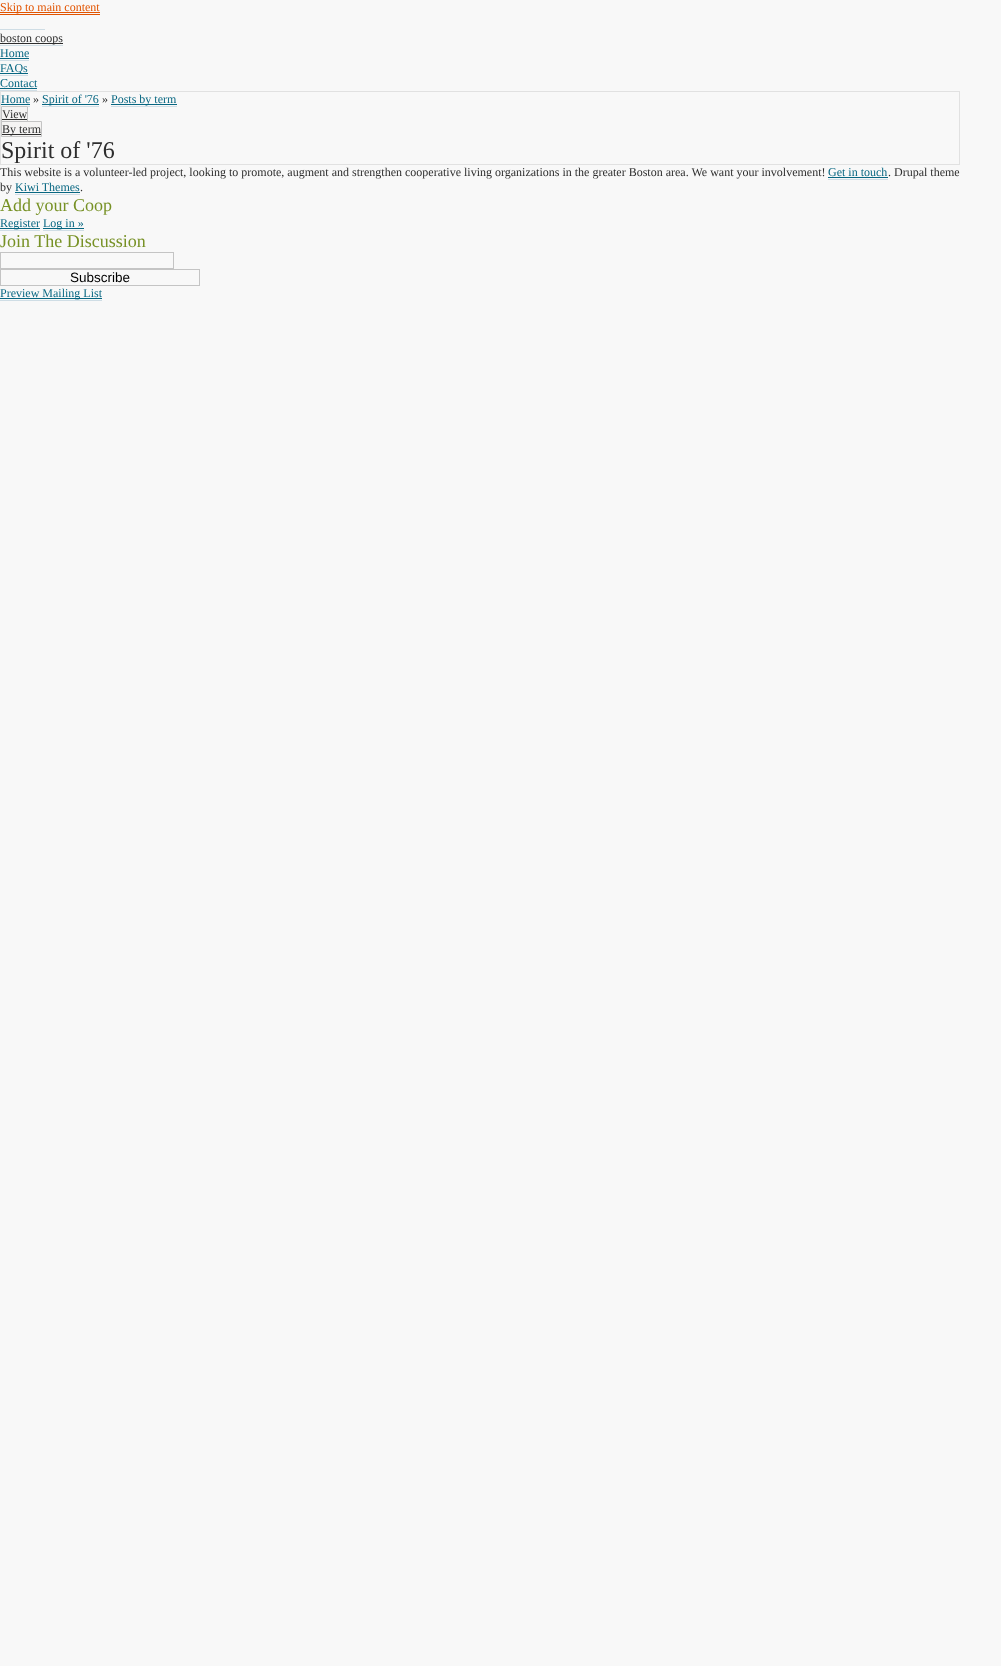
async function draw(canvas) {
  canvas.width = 1001
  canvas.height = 1666
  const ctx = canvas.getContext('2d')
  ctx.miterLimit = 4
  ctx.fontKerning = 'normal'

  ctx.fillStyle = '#f8f8f8'
  ctx.fillRect(0, 0, 1001, 1666)
  ctx.fillStyle = '#e25401'
  ctx.fillRect(0, 12, 100, 1)
  ctx.font = '12px Liberation Serif'
  ctx.fillText('Skip to main content', 0, 11)
  ctx.fillRect(0, 14, 100, 1)
  ctx.fillStyle = '#cfdde5'
  ctx.fillRect(0, 29, 45, 1)
  ctx.fillStyle = '#2e2e2e'
  ctx.fillRect(0, 43, 63, 1)
  ctx.fillText('boston coops', 0, 42)
  ctx.fillStyle = '#cfdde5'
  ctx.fillRect(0, 45, 63, 1)
  ctx.fillStyle = '#086782'
  ctx.fillText('Home', 0, 57)
  ctx.fillStyle = '#cfdde5'
  ctx.fillRect(0, 60, 29, 1)
  ctx.fillStyle = '#086782'
  ctx.fillRect(0, 58, 29, 1)
  ctx.fillRect(0, 73, 28, 1)
  ctx.fillText('FAQs', 0, 72)
  ctx.fillStyle = '#cfdde5'
  ctx.fillRect(0, 75, 28, 1)
  ctx.fillStyle = '#086782'
  ctx.fillText('Contact', 0, 87)
  ctx.fillStyle = '#cfdde5'
  ctx.fillRect(0, 90, 37, 1)
  ctx.fillStyle = '#086782'
  ctx.fillRect(0, 88, 37, 1)
  ctx.strokeStyle = '#e1e1e1'
  ctx.strokeRect(0.5, 91.5, 959, 73)
  ctx.fillText('Home', 1, 103)
  ctx.fillStyle = '#cfdde5'
  ctx.fillRect(28, 106, 2, 1)
  ctx.fillStyle = '#086782'
  ctx.fillRect(1, 104, 29, 1)
  ctx.fillStyle = '#2e2e2e'
  ctx.fillText('»', 33, 103)
  ctx.fillStyle = '#086782'
  ctx.fillRect(42, 104, 57, 1)
  ctx.fillText('Spirit of \'76', 42, 103)
  ctx.fillStyle = '#cfdde5'
  ctx.fillRect(42, 106, 57, 1)
  ctx.fillStyle = '#2e2e2e'
  ctx.fillText('»', 102, 103)
  ctx.fillStyle = '#086782'
  ctx.fillRect(111, 104, 66, 1)
  ctx.fillText('Posts by term', 111, 103)
  ctx.fillStyle = '#cfdde5'
  ctx.fillRect(111, 106, 66, 1)
  ctx.fillStyle = '#f5f4f3'
  ctx.beginPath()
  ctx.rect(1.5, 106.5, 26, 15)
  ctx.fill()
  ctx.strokeStyle = '#c4c4c4'
  ctx.stroke()
  ctx.fillStyle = '#2e2e2e'
  ctx.fillText('View', 2, 118)
  ctx.fillRect(2, 119, 25, 1)
  ctx.fillStyle = '#f5f4f3'
  ctx.beginPath()
  ctx.rect(1.5, 121.5, 40, 15)
  ctx.fill()
  ctx.stroke()
  ctx.fillStyle = '#2e2e2e'
  ctx.fillRect(2, 134, 39, 1)
  ctx.fillText('By term', 2, 133)
  ctx.font = '24px Liberation Serif'
  ctx.fillText('Spirit of \'76', 1, 158)
  ctx.font = '12px Liberation Serif'
  ctx.fillText('This website is a volunteer-led project, looking to promote, augment and strengthen cooperative living organizations in the greater Boston area. We want your involvement!', 0, 176)
  ctx.fillStyle = '#086782'
  ctx.fillText('Get in touch', 828, 176)
  ctx.fillStyle = '#cfdde5'
  ctx.fillRect(828, 179, 60, 1)
  ctx.fillStyle = '#086782'
  ctx.fillRect(828, 177, 60, 1)
  ctx.fillStyle = '#2e2e2e'
  ctx.fillText('. Drupal theme', 888, 176)
  ctx.fillText('by', 0, 191)
  ctx.fillStyle = '#086782'
  ctx.fillText('Kiwi Themes', 15, 191)
  ctx.fillStyle = '#cfdde5'
  ctx.fillRect(15, 194, 65, 1)
  ctx.fillStyle = '#086782'
  ctx.fillRect(15, 192, 65, 1)
  ctx.fillStyle = '#2e2e2e'
  ctx.fillText('.', 80, 191)
  ctx.font = '18px Liberation Serif'
  ctx.fillStyle = '#779125'
  ctx.fillText('Add your Coop', 0, 211)
  ctx.fillStyle = '#086782'
  ctx.fillRect(0, 228, 40, 1)
  ctx.font = '12px Liberation Serif'
  ctx.fillText('Register', 0, 227)
  ctx.fillStyle = '#cfdde5'
  ctx.fillRect(0, 230, 40, 1)
  ctx.fillStyle = '#086782'
  ctx.fillRect(43, 228, 41, 1)
  ctx.fillText('Log in »', 43, 227)
  ctx.fillStyle = '#cfdde5'
  ctx.fillRect(43, 230, 41, 1)
  ctx.font = '18px Liberation Serif'
  ctx.fillStyle = '#779125'
  ctx.fillText('Join The Discussion', 0, 247)
  ctx.strokeRect(0.5, 252.5, 173, 16)
  ctx.strokeRect(0.5, 269.5, 199, 16)
  ctx.font = '13.5px Liberation Sans'
  ctx.fillStyle = '#000'
  ctx.fillText('Subscribe', 70, 282)
  ctx.fillStyle = '#086782'
  ctx.fillRect(0, 298, 102, 1)
  ctx.font = '12px Liberation Serif'
  ctx.fillText('Preview Mailing List', 0, 297)
  ctx.fillStyle = '#cfdde5'
  ctx.fillRect(0, 300, 102, 1)
}

draw(document.querySelector('canvas'))
